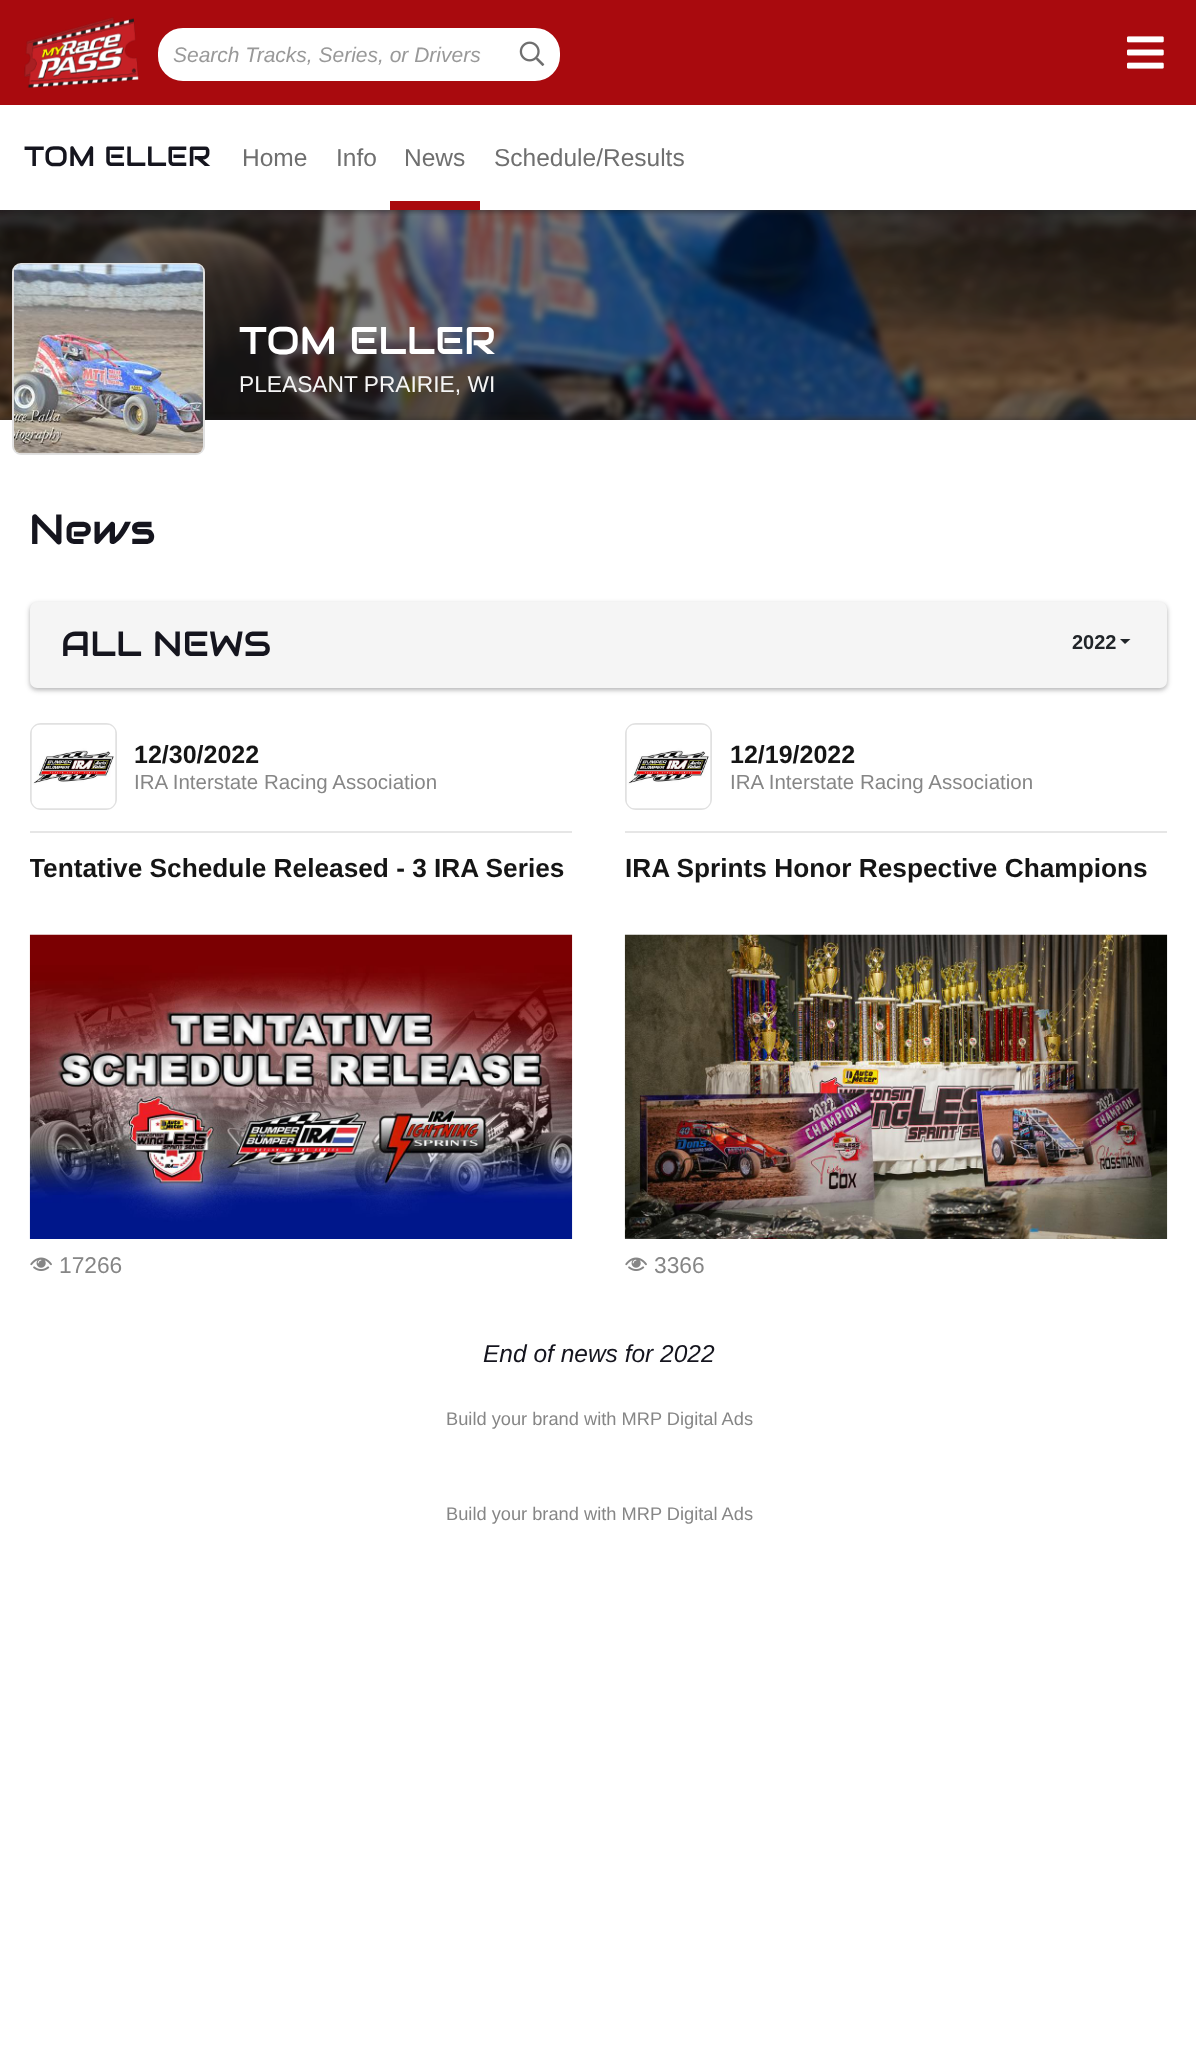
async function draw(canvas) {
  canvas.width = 1196
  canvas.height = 2048
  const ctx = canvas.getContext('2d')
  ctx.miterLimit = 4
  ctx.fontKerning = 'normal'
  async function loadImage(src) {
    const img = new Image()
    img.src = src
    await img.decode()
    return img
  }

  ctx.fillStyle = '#fff'
  ctx.fillRect(0, 0, 1196, 2048)
  ctx.drawImage(await loadImage('image3.png'), 0, 210, 1196, 210)
  ctx.save()
  ctx.beginPath()
  ctx.rect(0, 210, 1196, 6)
  ctx.clip()
  ctx.fillStyle = '#1f1f2180'
  ctx.filter = 'blur(2.5px)'
  ctx.beginPath()
  ctx.rect(0, 107, 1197, 105)
  ctx.fill()
  ctx.filter = 'none'
  ctx.restore()
  ctx.fillStyle = '#a90a0e'
  ctx.fillRect(0, 0, 1196, 105)
  ctx.drawImage(await loadImage('image0.png'), 24, 17, 115, 71)
  ctx.fillStyle = '#fff'
  ctx.beginPath()
  ctx.roundRect(159, 29, 400, 51, 24)
  ctx.fill()
  ctx.strokeStyle = '#fff'
  ctx.lineWidth = 2
  ctx.stroke()
  ctx.font = 'italic 21px Liberation Sans'
  ctx.fillStyle = '#999'
  ctx.fillText('Search Tracks, Series, or Drivers', 173, 62)
  ctx.drawImage(await loadImage('image1.png'), 519, 41, 26, 25)
  ctx.drawImage(await loadImage('image2.png'), 1127, 36, 37, 33)
  ctx.font = '28px Audiowide'
  ctx.fillStyle = '#15151e'
  ctx.fillText('TOM ELLER', 24, 166)
  ctx.font = '24.5px Liberation Sans'
  ctx.fillStyle = '#6f6f6f'
  ctx.fillText('Home', 242, 166)
  ctx.fillText('Info', 336, 166)
  ctx.fillText('News', 404, 166)
  ctx.fillStyle = '#a90a0e'
  ctx.fillRect(390, 201, 90, 9)
  ctx.fillStyle = '#6f6f6f'
  ctx.fillText('Schedule/Results', 494, 166)
  ctx.fillStyle = '#1f1f2159'
  ctx.filter = 'blur(2.5px)'
  ctx.beginPath()
  ctx.rect(0, 418, 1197, 1630)
  ctx.fill()
  ctx.filter = 'none'
  ctx.fillStyle = '#fff'
  ctx.fillRect(0, 420, 1196, 1628)
  ctx.beginPath()
  ctx.roundRect(13, 264, 191, 190, 8)
  ctx.strokeStyle = '#e1e1e1'
  ctx.stroke()
  ctx.drawImage(await loadImage('image4.png'), 14, 264, 189, 190)
  ctx.font = '38.5px Audiowide'
  ctx.fillText('TOM ELLER', 239, 354)
  ctx.font = '22.75px Liberation Sans'
  ctx.fillStyle = '#f5f5f5'
  ctx.fillText('PLEASANT PRAIRIE, WI', 239, 392)
  ctx.font = '42px Audiowide'
  ctx.fillStyle = '#15151e'
  ctx.fillText('News', 29, 544)
  ctx.fillStyle = '#1f1f2159'
  ctx.filter = 'blur(2.5px)'
  ctx.beginPath()
  ctx.roundRect(30, 604, 1137, 86, 7)
  ctx.fill()
  ctx.filter = 'none'
  ctx.fillStyle = '#f5f5f5'
  ctx.beginPath()
  ctx.roundRect(30, 602, 1137, 86, 7)
  ctx.fill()
  ctx.font = '35px Audiowide'
  ctx.fillStyle = '#15151e'
  ctx.fillText('ALL NEWS', 61, 656)
  ctx.font = 'bold 20px Liberation Sans'
  ctx.fillStyle = '#212529'
  ctx.fillText('2022', 1072, 649)
  ctx.beginPath()
  ctx.moveTo(1120, 639)
  ctx.lineTo(1130.5, 639)
  ctx.lineTo(1125, 644)
  ctx.closePath()
  ctx.fill()
  ctx.beginPath()
  ctx.roundRect(31, 724, 85, 85, 10)
  ctx.stroke()
  ctx.drawImage(await loadImage('image5.png'), 31, 724, 85, 85)
  ctx.font = 'bold 25px Liberation Sans'
  ctx.fillStyle = '#151515'
  ctx.fillText('12/30/2022', 134, 763)
  ctx.font = '20.5px Liberation Sans'
  ctx.fillStyle = '#868686'
  ctx.fillText('IRA Interstate Racing Association', 134, 789)
  ctx.fillStyle = '#e6e6e6'
  ctx.fillRect(30, 831, 542, 2)
  ctx.save()
  ctx.beginPath()
  ctx.rect(30, 854, 542, 60)
  ctx.clip()
  ctx.font = 'bold 26.25px Liberation Sans'
  ctx.fillStyle = '#151515'
  ctx.fillText('Tentative Schedule Released - 3 IRA Series', 29, 877)
  ctx.restore()
  ctx.drawImage(await loadImage('image6.png'), 29, 934, 544, 305)
  ctx.drawImage(await loadImage('image7.png'), 30, 1257, 22, 14)
  ctx.font = '22.75px Liberation Sans'
  ctx.fillStyle = '#868686'
  ctx.fillText('17266', 59, 1273)
  ctx.beginPath()
  ctx.roundRect(626, 724, 85, 85, 10)
  ctx.stroke()
  ctx.drawImage(await loadImage('image5.png'), 626, 724, 85, 85)
  ctx.font = 'bold 25px Liberation Sans'
  ctx.fillStyle = '#151515'
  ctx.fillText('12/19/2022', 730, 763)
  ctx.font = '20.5px Liberation Sans'
  ctx.fillStyle = '#868686'
  ctx.fillText('IRA Interstate Racing Association', 730, 789)
  ctx.fillStyle = '#e6e6e6'
  ctx.fillRect(625, 831, 542, 2)
  ctx.font = 'bold 26.25px Liberation Sans'
  ctx.fillStyle = '#151515'
  ctx.fillText('IRA Sprints Honor Respective Champions', 625, 877)
  ctx.drawImage(await loadImage('image8.png'), 624, 934, 544, 305)
  ctx.drawImage(await loadImage('image7.png'), 625, 1257, 22, 14)
  ctx.font = '22.75px Liberation Sans'
  ctx.fillStyle = '#868686'
  ctx.fillText('3366', 654, 1273)
  ctx.font = 'italic 24.5px Liberation Sans'
  ctx.fillStyle = '#15151e'
  ctx.fillText('End of news for 2022', 483, 1362)
  ctx.font = '18.25px Liberation Sans'
  ctx.fillStyle = '#868686'
  ctx.fillText('Build your brand with MRP Digital Ads', 446, 1425)
  ctx.fillText('Build your brand with MRP Digital Ads', 446, 1520)
}

draw(document.querySelector('canvas'))
